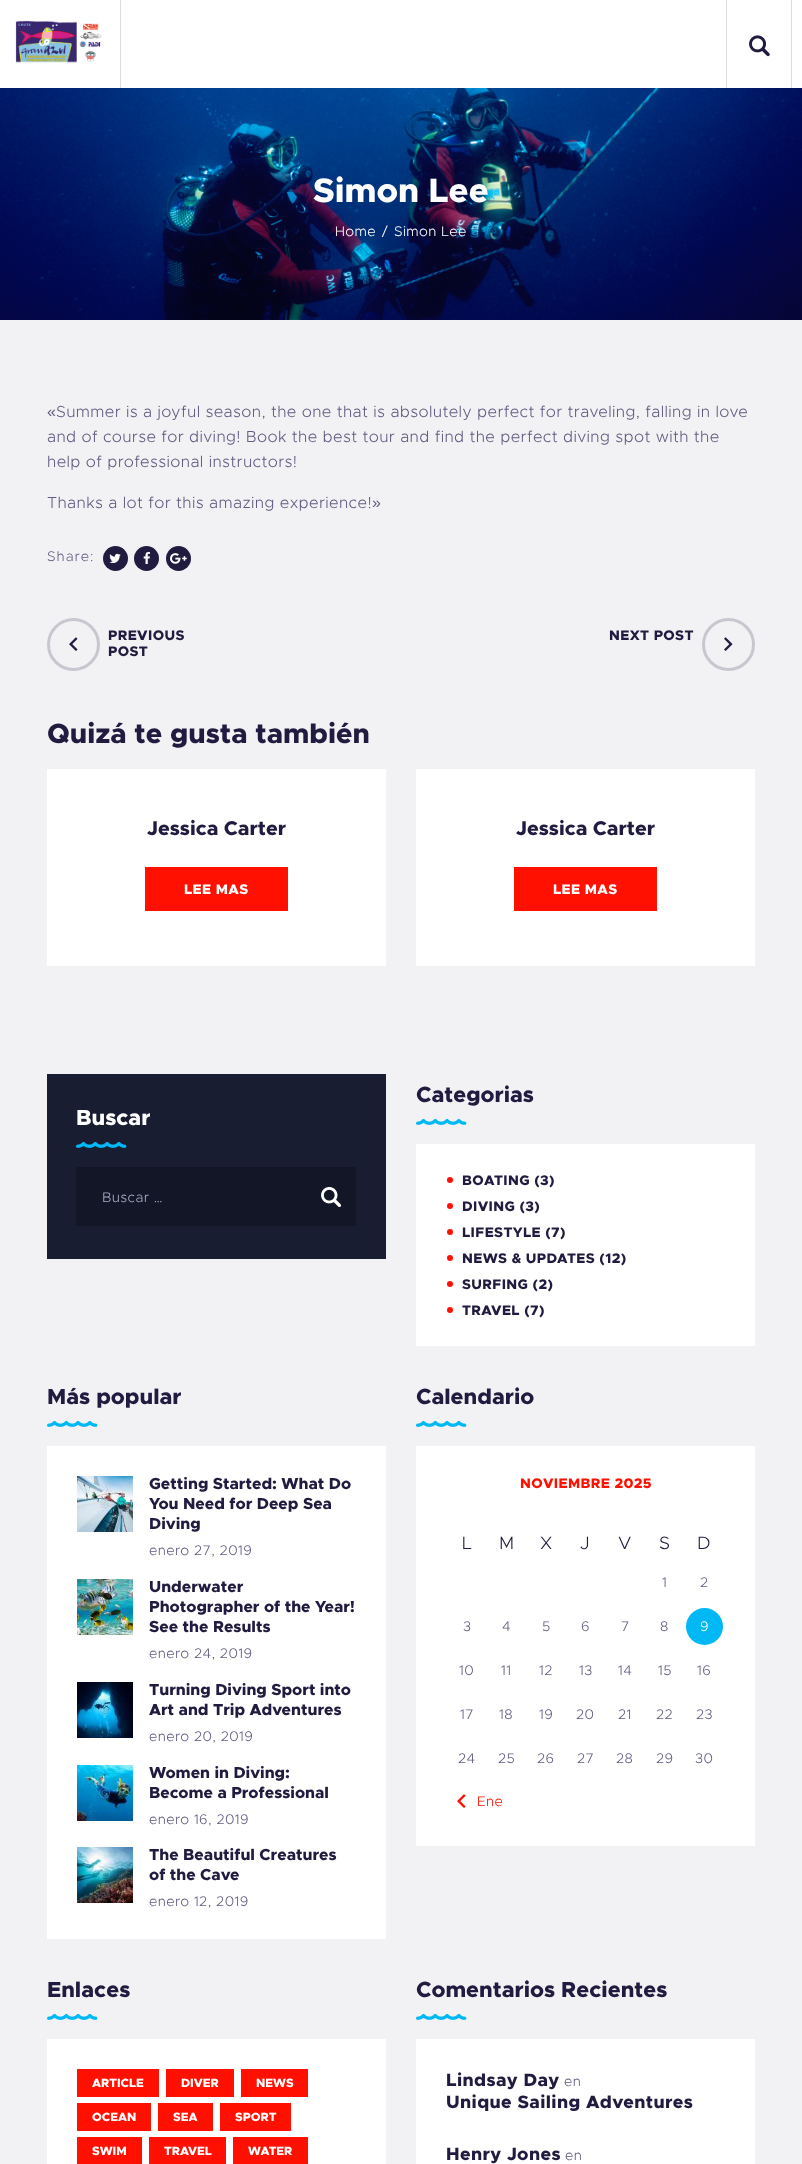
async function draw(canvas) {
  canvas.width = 802
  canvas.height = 2164
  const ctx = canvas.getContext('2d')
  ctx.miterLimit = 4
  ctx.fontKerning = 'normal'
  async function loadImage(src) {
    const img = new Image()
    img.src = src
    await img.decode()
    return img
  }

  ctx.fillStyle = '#f2f2f4'
  ctx.fillRect(0, 0, 802, 2164)
  ctx.fillStyle = '#fff'
  ctx.fillRect(0, 0, 802, 88)
  ctx.drawImage(await loadImage('image0.png'), 15, 20, 87, 43)
  ctx.fillStyle = '#dedde2'
  ctx.fillRect(120, 0, 1, 88)
  ctx.fillRect(791, 0, 1, 88)
  ctx.fillRect(726, 0, 1, 88)
  ctx.drawImage(await loadImage('image1.png'), 749, 35, 21, 22)
  ctx.drawImage(await loadImage('image2.png'), 0, 88, 802, 232)
  ctx.font = '800 34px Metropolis'
  ctx.fillStyle = '#fff'
  ctx.fillText('Simon Lee', 313, 202)
  ctx.letterSpacing = '0.38px'
  ctx.font = '300 14px Metropolis'
  ctx.fillText('Home', 335, 236)
  ctx.fillText('/', 382, 236)
  ctx.fillText('Simon Lee', 394, 236)
  ctx.font = '16px Liberation Sans'
  ctx.fillStyle = '#635c81'
  ctx.fillText('«', 47, 417)
  ctx.font = '300 16px Metropolis'
  ctx.fillText('Summer is a joyful season, the one that is absolutely perfect for traveling, falling in love', 56, 417)
  ctx.fillText('and of course for diving! Book the best tour and find the perfect diving spot with the', 47, 442)
  ctx.fillText('help of professional instructors!', 47, 467)
  ctx.fillText('Thanks a lot for this amazing experience!', 47, 508)
  ctx.font = '16px Liberation Sans'
  ctx.fillText('»', 372, 508)
  ctx.letterSpacing = '1px'
  ctx.font = '300 14px Metropolis'
  ctx.fillText('Share:', 47, 561)
  ctx.fillStyle = '#221b40'
  ctx.beginPath()
  ctx.arc(115.5, 558.5, 12.5, 0, 2 * Math.PI)
  ctx.fill()
  ctx.drawImage(await loadImage('image3.png'), 109, 553, 12, 11)
  ctx.beginPath()
  ctx.arc(146.5, 558.5, 12.5, 0, 2 * Math.PI)
  ctx.fill()
  ctx.drawImage(await loadImage('image4.png'), 143, 551, 7, 13)
  ctx.beginPath()
  ctx.arc(178.5, 558.5, 12.5, 0, 2 * Math.PI)
  ctx.fill()
  ctx.drawImage(await loadImage('image5.png'), 170, 553, 17, 11)
  ctx.beginPath()
  ctx.arc(73.5, 644.5, 25, 0, 2 * Math.PI)
  ctx.strokeStyle = '#c8c7d0'
  ctx.lineWidth = 3
  ctx.stroke()
  ctx.drawImage(await loadImage('image6.png'), 69, 637, 9, 14)
  ctx.letterSpacing = '0.38px'
  ctx.font = '800 14px Metropolis'
  ctx.fillText('PREVIOUS', 108, 640)
  ctx.fillText('POST', 108, 656)
  ctx.fillText('NEXT POST', 609, 640)
  ctx.beginPath()
  ctx.arc(728.5, 644.5, 25, 0, 2 * Math.PI)
  ctx.stroke()
  ctx.drawImage(await loadImage('image7.png'), 724, 637, 9, 14)
  ctx.letterSpacing = '0px'
  ctx.font = '800 28px Metropolis'
  ctx.fillText('Quizá te gusta también', 47, 743)
  ctx.fillStyle = '#fff'
  ctx.fillRect(47, 769, 339, 197)
  ctx.font = '800 20px Metropolis'
  ctx.fillStyle = '#221b40'
  ctx.fillText('Jessica Carter', 147, 835)
  ctx.fillStyle = '#ff1000'
  ctx.fillRect(145, 867, 143, 44)
  ctx.letterSpacing = '0.38px'
  ctx.font = '800 14px Metropolis'
  ctx.fillStyle = '#fff'
  ctx.fillText('LEE MAS', 184, 894)
  ctx.fillRect(416, 769, 339, 197)
  ctx.letterSpacing = '0px'
  ctx.font = '800 20px Metropolis'
  ctx.fillStyle = '#221b40'
  ctx.fillText('Jessica Carter', 516, 835)
  ctx.fillStyle = '#ff1000'
  ctx.fillRect(514, 867, 143, 44)
  ctx.letterSpacing = '0.38px'
  ctx.font = '800 14px Metropolis'
  ctx.fillStyle = '#fff'
  ctx.fillText('LEE MAS', 553, 894)
  ctx.fillStyle = '#191d32'
  ctx.fillRect(47, 1074, 339, 185)
  ctx.letterSpacing = '0px'
  ctx.font = '800 22px Metropolis'
  ctx.fillStyle = '#fff'
  ctx.fillText('Buscar', 76, 1125)
  ctx.drawImage(await loadImage('image8.png'), 76, 1141, 51, 7)
  ctx.fillStyle = '#131627'
  ctx.fillRect(76, 1167, 280, 59)
  ctx.letterSpacing = '0.38px'
  ctx.font = '300 14px Metropolis'
  ctx.fillStyle = '#a8adc5'
  ctx.fillText('Buscar …', 102, 1202)
  ctx.drawImage(await loadImage('image9.png'), 321, 1187, 21, 20)
  ctx.letterSpacing = '0px'
  ctx.font = '800 22px Metropolis'
  ctx.fillStyle = '#221b40'
  ctx.fillText('Categorias', 416, 1102)
  ctx.drawImage(await loadImage('image10.png'), 416, 1118, 51, 7)
  ctx.fillStyle = '#fff'
  ctx.fillRect(416, 1144, 339, 202)
  ctx.fillStyle = '#ff1000'
  ctx.beginPath()
  ctx.arc(450, 1180, 3, 0, 2 * Math.PI)
  ctx.fill()
  ctx.letterSpacing = '0.38px'
  ctx.font = '800 14px Metropolis'
  ctx.fillStyle = '#221b40'
  ctx.fillText('BOATING (3)', 462, 1185)
  ctx.fillStyle = '#ff1000'
  ctx.beginPath()
  ctx.arc(450, 1206, 3, 0, 2 * Math.PI)
  ctx.fill()
  ctx.fillStyle = '#221b40'
  ctx.fillText('DIVING (3)', 462, 1211)
  ctx.fillStyle = '#ff1000'
  ctx.beginPath()
  ctx.arc(450, 1232, 3, 0, 2 * Math.PI)
  ctx.fill()
  ctx.fillStyle = '#221b40'
  ctx.fillText('LIFESTYLE (7)', 462, 1237)
  ctx.fillStyle = '#ff1000'
  ctx.beginPath()
  ctx.arc(450, 1258, 3, 0, 2 * Math.PI)
  ctx.fill()
  ctx.fillStyle = '#221b40'
  ctx.fillText('NEWS & UPDATES (12)', 462, 1263)
  ctx.fillStyle = '#ff1000'
  ctx.beginPath()
  ctx.arc(450, 1284, 3, 0, 2 * Math.PI)
  ctx.fill()
  ctx.fillStyle = '#221b40'
  ctx.fillText('SURFING (2)', 462, 1289)
  ctx.fillStyle = '#ff1000'
  ctx.beginPath()
  ctx.arc(450, 1310, 3, 0, 2 * Math.PI)
  ctx.fill()
  ctx.fillStyle = '#221b40'
  ctx.fillText('TRAVEL (7)', 462, 1315)
  ctx.letterSpacing = '0px'
  ctx.font = '800 22px Metropolis'
  ctx.fillText('Más popular', 47, 1404)
  ctx.drawImage(await loadImage('image10.png'), 47, 1420, 51, 7)
  ctx.fillStyle = '#fff'
  ctx.fillRect(47, 1446, 339, 493)
  ctx.drawImage(await loadImage('image11.png'), 77, 1476, 56, 56)
  ctx.font = '800 16px Metropolis'
  ctx.fillStyle = '#221b40'
  ctx.fillText('Getting Started: What Do', 149, 1489)
  ctx.fillText('You Need for Deep Sea', 149, 1509)
  ctx.fillText('Diving', 149, 1529)
  ctx.letterSpacing = '0.38px'
  ctx.font = '300 14px Metropolis'
  ctx.fillStyle = '#635c81'
  ctx.fillText('enero 27, 2019', 149, 1555)
  ctx.drawImage(await loadImage('image12.png'), 77, 1579, 56, 56)
  ctx.letterSpacing = '0px'
  ctx.font = '800 16px Metropolis'
  ctx.fillStyle = '#221b40'
  ctx.fillText('Underwater', 149, 1592)
  ctx.fillText('Photographer of the Year!', 149, 1612)
  ctx.fillText('See the Results', 149, 1632)
  ctx.letterSpacing = '0.38px'
  ctx.font = '300 14px Metropolis'
  ctx.fillStyle = '#635c81'
  ctx.fillText('enero 24, 2019', 149, 1658)
  ctx.drawImage(await loadImage('image13.png'), 77, 1682, 56, 56)
  ctx.letterSpacing = '0px'
  ctx.font = '800 16px Metropolis'
  ctx.fillStyle = '#221b40'
  ctx.fillText('Turning Diving Sport into', 149, 1695)
  ctx.fillText('Art and Trip Adventures', 149, 1715)
  ctx.letterSpacing = '0.38px'
  ctx.font = '300 14px Metropolis'
  ctx.fillStyle = '#635c81'
  ctx.fillText('enero 20, 2019', 149, 1741)
  ctx.drawImage(await loadImage('image14.png'), 77, 1765, 56, 56)
  ctx.letterSpacing = '0px'
  ctx.font = '800 16px Metropolis'
  ctx.fillStyle = '#221b40'
  ctx.fillText('Women in Diving:', 149, 1778)
  ctx.fillText('Become a Professional', 149, 1798)
  ctx.letterSpacing = '0.38px'
  ctx.font = '300 14px Metropolis'
  ctx.fillStyle = '#635c81'
  ctx.fillText('enero 16, 2019', 149, 1824)
  ctx.drawImage(await loadImage('image15.png'), 77, 1847, 56, 56)
  ctx.letterSpacing = '0px'
  ctx.font = '800 16px Metropolis'
  ctx.fillStyle = '#221b40'
  ctx.fillText('The Beautiful Creatures', 149, 1860)
  ctx.fillText('of the Cave', 149, 1880)
  ctx.letterSpacing = '0.38px'
  ctx.font = '300 14px Metropolis'
  ctx.fillStyle = '#635c81'
  ctx.fillText('enero 12, 2019', 149, 1906)
  ctx.letterSpacing = '0px'
  ctx.font = '800 22px Metropolis'
  ctx.fillStyle = '#221b40'
  ctx.fillText('Calendario', 416, 1404)
  ctx.drawImage(await loadImage('image10.png'), 416, 1420, 51, 7)
  ctx.fillStyle = '#fff'
  ctx.fillRect(416, 1446, 339, 400)
  ctx.letterSpacing = '0.38px'
  ctx.font = '800 14px Metropolis'
  ctx.fillStyle = '#ff1000'
  ctx.fillText('NOVIEMBRE 2025', 520, 1488)
  ctx.font = '300 18px Metropolis'
  ctx.fillStyle = '#221b40'
  ctx.fillText('L', 462, 1549)
  ctx.fillText('M', 499, 1549)
  ctx.fillText('X', 540, 1549)
  ctx.fillText('J', 580, 1549)
  ctx.fillText('V', 618, 1549)
  ctx.fillText('S', 659, 1549)
  ctx.fillText('D', 697, 1549)
  ctx.font = '300 14px Metropolis'
  ctx.fillStyle = '#635c81'
  ctx.fillText('1', 662, 1587)
  ctx.fillText('2', 700, 1587)
  ctx.fillText('3', 463, 1631)
  ctx.fillText('4', 502, 1631)
  ctx.fillText('5', 542, 1631)
  ctx.fillText('6', 581, 1631)
  ctx.fillText('7', 621, 1631)
  ctx.fillText('8', 660, 1631)
  ctx.fillStyle = '#00b8f4'
  ctx.beginPath()
  ctx.arc(704.5, 1626.5, 18.5, 0, 2 * Math.PI)
  ctx.fill()
  ctx.fillStyle = '#fff'
  ctx.fillText('9', 700, 1631)
  ctx.fillStyle = '#635c81'
  ctx.fillText('10', 459, 1675)
  ctx.fillText('11', 501, 1675)
  ctx.fillText('12', 539, 1675)
  ctx.fillText('13', 579, 1675)
  ctx.fillText('14', 618, 1675)
  ctx.fillText('15', 658, 1675)
  ctx.fillText('16', 697, 1675)
  ctx.fillText('17', 460, 1719)
  ctx.fillText('18', 499, 1719)
  ctx.fillText('19', 539, 1719)
  ctx.fillText('20', 576, 1719)
  ctx.fillText('21', 618, 1719)
  ctx.fillText('22', 656, 1719)
  ctx.fillText('23', 696, 1719)
  ctx.fillText('24', 458, 1763)
  ctx.fillText('25', 498, 1763)
  ctx.fillText('26', 537, 1763)
  ctx.fillText('27', 577, 1763)
  ctx.fillText('28', 616, 1763)
  ctx.fillText('29', 656, 1763)
  ctx.fillText('30', 695, 1763)
  ctx.drawImage(await loadImage('image16.png'), 457, 1794, 9, 14)
  ctx.fillStyle = '#ff1000'
  ctx.fillText('Ene', 477, 1806)
  ctx.letterSpacing = '0px'
  ctx.font = '800 22px Metropolis'
  ctx.fillStyle = '#221b40'
  ctx.fillText('Enlaces', 47, 1997)
  ctx.drawImage(await loadImage('image10.png'), 47, 2013, 51, 7)
  ctx.fillStyle = '#fff'
  ctx.fillRect(47, 2039, 339, 125)
  ctx.fillStyle = '#ff1000'
  ctx.fillRect(77, 2069, 82, 28)
  ctx.font = '800 12px Metropolis'
  ctx.fillStyle = '#fff'
  ctx.fillText('ARTICLE', 92, 2087)
  ctx.fillStyle = '#ff1000'
  ctx.fillRect(166, 2069, 68, 28)
  ctx.fillStyle = '#fff'
  ctx.fillText('DIVER', 181, 2087)
  ctx.fillStyle = '#ff1000'
  ctx.fillRect(241, 2069, 67, 28)
  ctx.fillStyle = '#fff'
  ctx.fillText('NEWS', 256, 2087)
  ctx.fillStyle = '#ff1000'
  ctx.fillRect(77, 2103, 74, 28)
  ctx.fillStyle = '#fff'
  ctx.fillText('OCEAN', 92, 2121)
  ctx.fillStyle = '#ff1000'
  ctx.fillRect(158, 2103, 55, 28)
  ctx.fillStyle = '#fff'
  ctx.fillText('SEA', 173, 2121)
  ctx.fillStyle = '#ff1000'
  ctx.fillRect(220, 2103, 71, 28)
  ctx.fillStyle = '#fff'
  ctx.fillText('SPORT', 235, 2121)
  ctx.fillStyle = '#ff1000'
  ctx.fillRect(77, 2137, 65, 27)
  ctx.fillStyle = '#fff'
  ctx.fillText('SWIM', 92, 2155)
  ctx.fillStyle = '#ff1000'
  ctx.fillRect(149, 2137, 77, 27)
  ctx.fillStyle = '#fff'
  ctx.fillText('TRAVEL', 164, 2155)
  ctx.fillStyle = '#ff1000'
  ctx.fillRect(233, 2137, 75, 27)
  ctx.fillStyle = '#fff'
  ctx.fillText('WATER', 248, 2155)
  ctx.font = '800 22px Metropolis'
  ctx.fillStyle = '#221b40'
  ctx.fillText('Comentarios Recientes', 416, 1997)
  ctx.drawImage(await loadImage('image10.png'), 416, 2013, 51, 7)
  ctx.fillStyle = '#fff'
  ctx.fillRect(416, 2039, 339, 125)
  ctx.letterSpacing = '0.38px'
  ctx.font = '800 18px Metropolis'
  ctx.fillStyle = '#221b40'
  ctx.fillText('Lindsay Day', 446, 2086)
  ctx.font = '300 14px Metropolis'
  ctx.fillStyle = '#635c81'
  ctx.fillText('en', 564, 2086)
  ctx.font = '800 18px Metropolis'
  ctx.fillStyle = '#221b40'
  ctx.fillText('Unique Sailing Adventures', 446, 2108)
  ctx.fillText('Henry Jones', 446, 2160)
  ctx.font = '300 14px Metropolis'
  ctx.fillStyle = '#635c81'
  ctx.fillText('en', 565, 2160)
}

draw(document.querySelector('canvas'))
